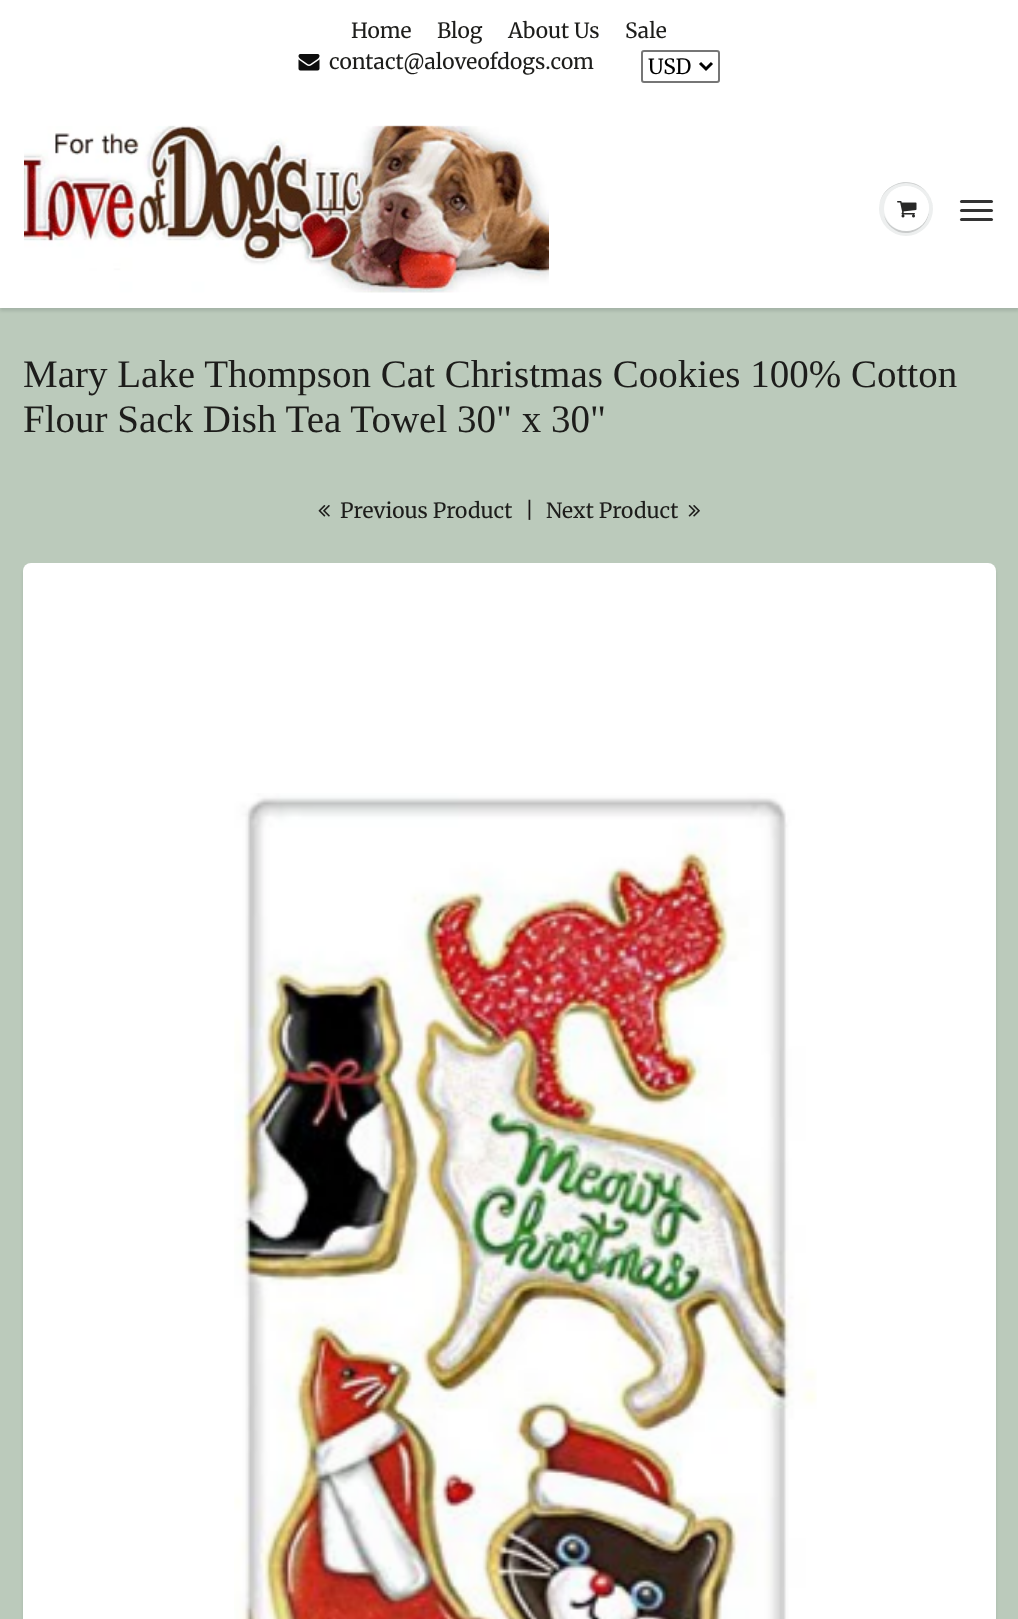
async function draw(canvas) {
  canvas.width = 1018
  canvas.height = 1619
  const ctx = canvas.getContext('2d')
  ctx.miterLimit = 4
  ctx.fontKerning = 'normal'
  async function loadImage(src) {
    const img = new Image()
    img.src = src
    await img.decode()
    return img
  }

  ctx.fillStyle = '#fff'
  ctx.fillRect(0, 0, 1018, 1619)
  ctx.font = '21px Merriweather'
  ctx.fillStyle = '#1d1d1b'
  ctx.fillText('Home', 351, 38)
  ctx.fillText('Blog', 437, 38)
  ctx.fillText('About Us', 508, 38)
  ctx.fillText('Sale', 625, 38)
  ctx.drawImage(await loadImage('image0.png'), 298, 54, 22, 17)
  ctx.fillText('contact@aloveofdogs.com', 329, 69)
  ctx.beginPath()
  ctx.roundRect(642, 51, 77, 31, 2)
  ctx.strokeStyle = '#767676'
  ctx.lineWidth = 2
  ctx.stroke()
  ctx.beginPath()
  ctx.moveTo(700, 63)
  ctx.lineTo(706, 69)
  ctx.lineTo(712, 63)
  ctx.strokeStyle = '#000'
  ctx.lineWidth = 3
  ctx.stroke()
  ctx.fillStyle = '#000'
  ctx.fillText('USD', 648, 74)
  ctx.fillStyle = '#bbcabb'
  ctx.fillRect(0, 308, 1018, 1311)
  ctx.save()
  ctx.beginPath()
  ctx.moveTo(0, 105)
  ctx.lineTo(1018, 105)
  ctx.lineTo(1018, 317)
  ctx.lineTo(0, 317)
  ctx.closePath()
  ctx.moveTo(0, 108)
  ctx.lineTo(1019, 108)
  ctx.lineTo(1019, 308)
  ctx.lineTo(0, 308)
  ctx.closePath()
  ctx.clip('evenodd')
  ctx.fillStyle = '#0b191c1f'
  ctx.filter = 'blur(1.5px)'
  ctx.beginPath()
  ctx.rect(0, 111, 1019, 200)
  ctx.fill()
  ctx.filter = 'none'
  ctx.restore()
  ctx.drawImage(await loadImage('image1.png'), 24, 125, 525, 168)
  ctx.fillStyle = '#edefef'
  ctx.beginPath()
  ctx.arc(906, 209, 27, 0, 2 * Math.PI)
  ctx.fill()
  ctx.fillStyle = '#c9cbcb'
  ctx.beginPath()
  ctx.moveTo(906, 183)
  ctx.bezierCurveTo(921, 183, 933, 195, 933, 209)
  ctx.bezierCurveTo(933, 204, 931, 198, 928, 194)
  ctx.bezierCurveTo(913, 172, 879, 183, 879, 209)
  ctx.bezierCurveTo(879, 195, 891, 183, 906, 183)
  ctx.closePath()
  ctx.fill()
  ctx.beginPath()
  ctx.moveTo(884, 215)
  ctx.bezierCurveTo(885, 220, 888, 225, 892, 228)
  ctx.bezierCurveTo(909, 242, 934, 225, 928, 204)
  ctx.bezierCurveTo(934, 232, 893, 242, 884, 215)
  ctx.closePath()
  ctx.fill()
  ctx.fillStyle = '#fff'
  ctx.beginPath()
  ctx.arc(906.5, 208.5, 22.5, 0, 2 * Math.PI)
  ctx.fill()
  ctx.beginPath()
  ctx.moveTo(906, 188)
  ctx.bezierCurveTo(923, 188, 930, 203, 928, 215)
  ctx.bezierCurveTo(936, 187, 895, 174, 885, 201)
  ctx.bezierCurveTo(888, 194, 895, 188, 906, 188)
  ctx.closePath()
  ctx.fill()
  ctx.drawImage(await loadImage('image2.png'), 897, 201, 20, 17)
  ctx.fillStyle = '#333'
  ctx.beginPath()
  ctx.roundRect(960, 200, 33, 3, 1.5)
  ctx.fill()
  ctx.beginPath()
  ctx.roundRect(960, 209, 33, 3, 1.5)
  ctx.fill()
  ctx.beginPath()
  ctx.roundRect(960, 218, 33, 3, 1.5)
  ctx.fill()
  ctx.font = '39px Liberation Serif'
  ctx.fillStyle = '#1d1d1b'
  ctx.fillText('Mary Lake Thompson Cat Christmas Cookies 100% Cotton', 23, 387)
  ctx.fillText('Flour Sack Dish Tea Towel 30" x 30"', 23, 432)
  ctx.drawImage(await loadImage('image3.png'), 318, 505, 12, 12)
  ctx.font = '21px Merriweather'
  ctx.fillText('Previous Product', 340, 518)
  ctx.fillStyle = '#1a1616'
  ctx.fillText('|', 525, 518)
  ctx.fillStyle = '#1d1d1b'
  ctx.fillText('Next Product', 546, 518)
  ctx.drawImage(await loadImage('image4.png'), 688, 505, 12, 12)
  ctx.fillStyle = '#0b191c1a'
  ctx.filter = 'blur(1.5px)'
  ctx.beginPath()
  ctx.roundRect(23, 566, 973, 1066, 8)
  ctx.fill()
  ctx.filter = 'none'
  ctx.fillStyle = '#fff'
  ctx.beginPath()
  ctx.roundRect(23, 563, 973, 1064, 8)
  ctx.fill()
  ctx.drawImage(await loadImage('image5.png'), 234, 793, 583, 826)
}

draw(document.querySelector('canvas'))
